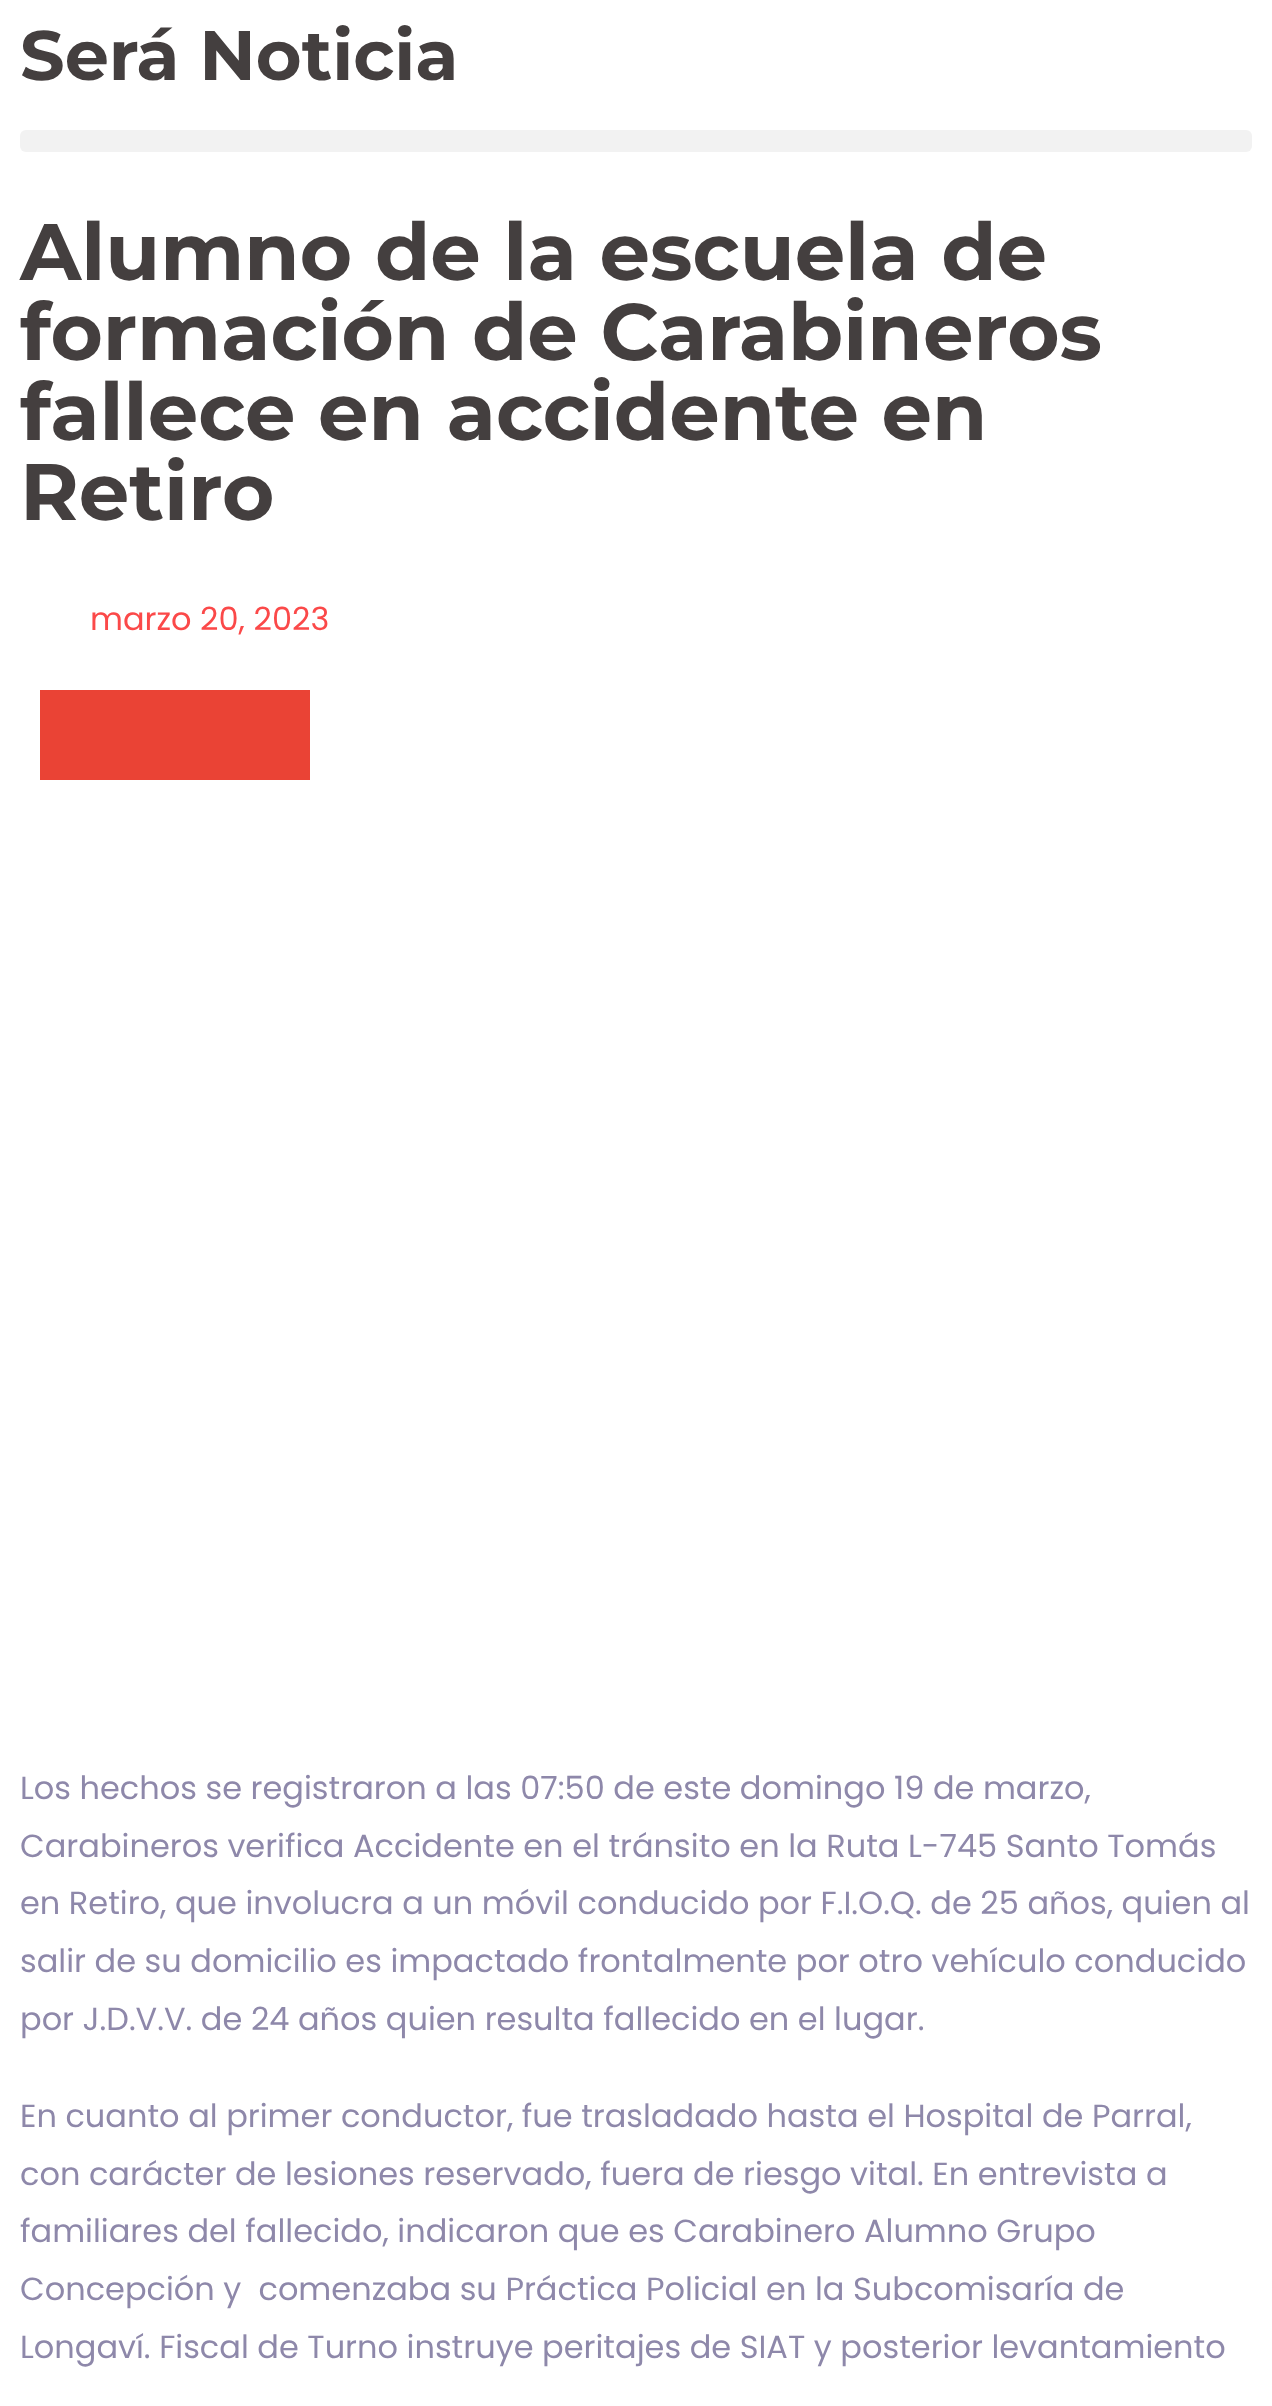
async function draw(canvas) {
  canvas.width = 1272
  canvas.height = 2406
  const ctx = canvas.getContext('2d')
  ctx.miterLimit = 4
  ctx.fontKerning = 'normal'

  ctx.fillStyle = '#fff'
  ctx.fillRect(0, 0, 1272, 2406)
  ctx.font = 'bold 70px Montserrat'
  ctx.fillStyle = '#443f3f'
  ctx.fillText('Será Noticia', 20, 80)
  ctx.fillStyle = '#f2f2f2'
  ctx.beginPath()
  ctx.roundRect(20, 130, 1232, 22, 6)
  ctx.fill()
  ctx.font = 'bold 80px Montserrat'
  ctx.fillStyle = '#443f3f'
  ctx.fillText('Alumno de la escuela de', 20, 280)
  ctx.fillText('formación de Carabineros', 20, 360)
  ctx.fillText('fallece en accidente en', 20, 440)
  ctx.fillText('Retiro', 20, 520)
  ctx.font = '32px Poppins'
  ctx.fillStyle = '#fb4949'
  ctx.fillText('marzo 20, 2023', 90, 630)
  ctx.fillStyle = '#ea4335'
  ctx.fillRect(40, 690, 270, 90)
  ctx.fillStyle = '#8e88aa'
  ctx.fillText('Los hechos se registraron a las 07:50 de este domingo 19 de marzo,', 20, 1799)
  ctx.fillText('Carabineros verifica Accidente en el tránsito en la Ruta L-745 Santo Tomás', 20, 1857)
  ctx.fillText('en Retiro, que involucra a un móvil conducido por F.I.O.Q. de 25 años, quien al', 20, 1914)
  ctx.fillText('salir de su domicilio es impactado frontalmente por otro vehículo conducido', 20, 1972)
  ctx.fillText('por J.D.V.V. de 24 años quien resulta fallecido en el lugar.', 20, 2030)
  ctx.fillText('En cuanto al primer conductor, fue trasladado hasta el Hospital de Parral,', 20, 2127)
  ctx.fillText('con carácter de lesiones reservado, fuera de riesgo vital. En entrevista a', 20, 2185)
  ctx.fillText('familiares del fallecido, indicaron que es Carabinero Alumno Grupo', 20, 2242)
  ctx.fillText('Concepción y  comenzaba su Práctica Policial en la Subcomisaría de', 20, 2300)
  ctx.fillText('Longaví. Fiscal de Turno instruye peritajes de SIAT y posterior levantamiento', 20, 2358)
}

draw(document.querySelector('canvas'))
